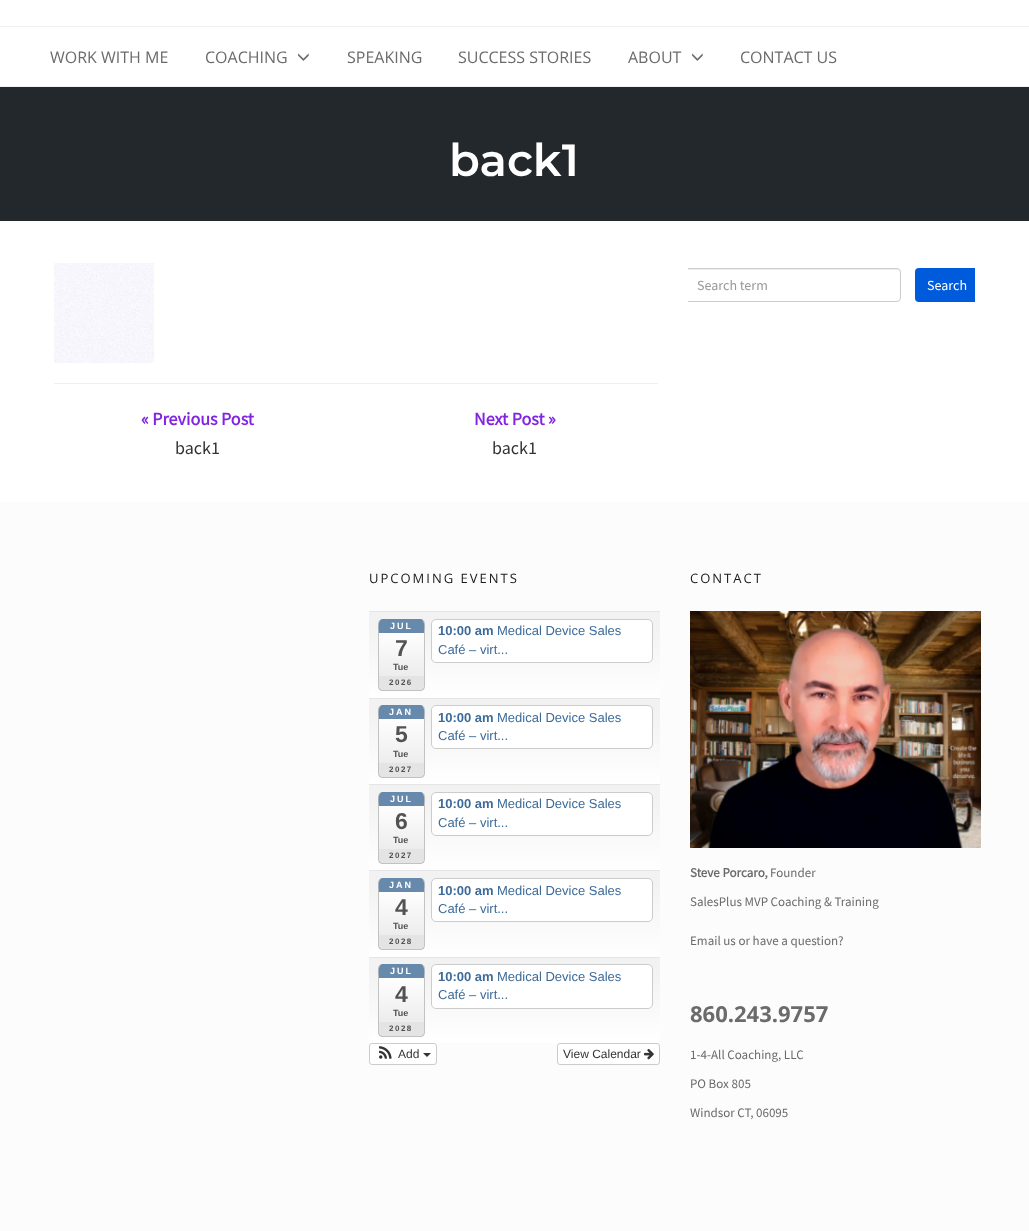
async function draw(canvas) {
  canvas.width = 1029
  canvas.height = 1231
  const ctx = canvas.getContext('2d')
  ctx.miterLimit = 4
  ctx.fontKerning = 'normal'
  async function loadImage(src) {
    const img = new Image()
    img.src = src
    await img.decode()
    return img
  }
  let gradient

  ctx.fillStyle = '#fff'
  ctx.fillRect(0, 0, 1029, 1231)
  ctx.fillStyle = '#f0f0f0'
  ctx.fillRect(0, 86, 1029, 1)
  ctx.fillRect(0, 26, 1029, 1)
  ctx.font = '16px Open Sans'
  ctx.fillStyle = '#6b6b6b'
  ctx.fillText('WORK WITH ME', 50, 63)
  ctx.fillText('COACHING', 205, 63)
  ctx.drawImage(await loadImage('image0.png'), 298, 53, 11, 8)
  ctx.fillText('SPEAKING', 347, 63)
  ctx.fillText('SUCCESS STORIES', 458, 63)
  ctx.fillText('ABOUT', 628, 63)
  ctx.drawImage(await loadImage('image0.png'), 692, 53, 11, 8)
  ctx.fillText('CONTACT US', 740, 63)
  ctx.fillStyle = '#23282d'
  ctx.fillRect(0, 87, 1029, 134)
  ctx.font = '100 45px Montserrat'
  ctx.fillStyle = '#fff'
  ctx.fillText('back1', 449, 176)
  ctx.save()
  ctx.beginPath()
  ctx.rect(688, 268, 287, 49)
  ctx.clip()
  ctx.fillStyle = '#ececec'
  ctx.beginPath()
  ctx.moveTo(688, 270)
  ctx.lineTo(897, 270)
  ctx.bezierCurveTo(899, 270, 900, 271, 900, 273)
  ctx.lineTo(900, 272)
  ctx.bezierCurveTo(900, 270, 899, 269, 897, 269)
  ctx.lineTo(688, 269)
  ctx.bezierCurveTo(686, 269, 685, 270, 685, 272)
  ctx.lineTo(685, 273)
  ctx.bezierCurveTo(685, 271, 686, 270, 688, 270)
  ctx.closePath()
  ctx.fill()
  ctx.beginPath()
  ctx.roundRect(684.5, 268.5, 216, 33, 3.5)
  ctx.strokeStyle = '#ccc'
  ctx.stroke()
  ctx.restore()
  ctx.font = '14px Source Sans Pro'
  ctx.fillStyle = '#999'
  ctx.fillText('Search term', 697, 290)
  ctx.fillStyle = '#005bdc'
  ctx.beginPath()
  ctx.roundRect(915, 268, 60, 34, [4, 0, 0, 4])
  ctx.fill()
  ctx.fillStyle = '#fff'
  ctx.fillText('Search', 927, 290)
  ctx.drawImage(await loadImage('image1.png'), 54, 263, 100, 100)
  ctx.fillStyle = '#eee'
  ctx.fillRect(54, 383, 604, 1)
  ctx.font = 'bold 18px Source Sans Pro'
  ctx.fillStyle = '#8224e3'
  ctx.fillText('« Previous Post', 141, 425)
  ctx.font = '18px Source Sans Pro'
  ctx.fillStyle = '#333'
  ctx.fillText('back1', 175, 454)
  ctx.font = 'bold 18px Source Sans Pro'
  ctx.fillStyle = '#8224e3'
  ctx.fillText('Next Post »', 474, 425)
  ctx.font = '18px Source Sans Pro'
  ctx.fillStyle = '#333'
  ctx.fillText('back1', 492, 454)
  ctx.fillStyle = '#fcfcfc'
  ctx.fillRect(0, 502, 1029, 729)
  ctx.letterSpacing = '2px'
  ctx.font = '13px Open Sans'
  ctx.fillStyle = '#191919'
  ctx.fillText('UPCOMING EVENTS', 369, 583)
  gradient = ctx.createLinearGradient(515, 612, 515, 698)
  gradient.addColorStop(0, '#f2f2f2')
  gradient.addColorStop(0.15, '#f2f2f2')
  gradient.addColorStop(1, '#fff')
  ctx.fillStyle = gradient
  ctx.fillRect(369, 612, 291, 86)
  ctx.fillStyle = '#e5e5e5'
  ctx.fillRect(369, 611, 291, 1)
  ctx.save()
  ctx.beginPath()
  ctx.roundRect(378, 619, 47, 72, 5)
  ctx.clip()
  gradient = ctx.createLinearGradient(402, 619, 402, 690)
  gradient.addColorStop(0, '#fff')
  gradient.addColorStop(0.16, '#fff')
  gradient.addColorStop(1, '#e7e7e7')
  ctx.fillStyle = gradient
  ctx.fillRect(379, 619, 45, 71)
  ctx.restore()
  ctx.fillStyle = '#c2c2c2'
  ctx.beginPath()
  ctx.moveTo(383, 619)
  ctx.lineTo(420, 619)
  ctx.bezierCurveTo(423, 619, 425, 621, 425, 624)
  ctx.lineTo(425, 686)
  ctx.bezierCurveTo(425, 689, 423, 691, 420, 691)
  ctx.lineTo(383, 691)
  ctx.bezierCurveTo(380, 691, 378, 689, 378, 686)
  ctx.lineTo(378, 624)
  ctx.bezierCurveTo(378, 621, 380, 619, 383, 619)
  ctx.closePath()
  ctx.moveTo(383, 619)
  ctx.lineTo(420, 619)
  ctx.bezierCurveTo(422, 619, 424, 621, 424, 624)
  ctx.lineTo(424, 686)
  ctx.bezierCurveTo(424, 688, 422, 690, 420, 690)
  ctx.lineTo(383, 690)
  ctx.bezierCurveTo(381, 690, 379, 688, 379, 686)
  ctx.lineTo(379, 624)
  ctx.bezierCurveTo(379, 621, 381, 619, 383, 619)
  ctx.closePath()
  ctx.fill('evenodd')
  ctx.fillStyle = '#6689ac'
  ctx.beginPath()
  ctx.moveTo(383, 619)
  ctx.bezierCurveTo(377, 619, 379, 630, 379, 633)
  ctx.lineTo(424, 633)
  ctx.bezierCurveTo(424, 630, 426, 619, 420, 619)
  ctx.closePath()
  ctx.fill()
  ctx.font = 'bold 9px Liberation Sans'
  ctx.fillStyle = '#fff'
  ctx.fillText('JUL', 390, 629)
  ctx.letterSpacing = '0px'
  ctx.font = 'bold 23px Liberation Sans'
  ctx.fillStyle = '#525252'
  ctx.fillText('7', 395, 656)
  ctx.font = 'bold 9px Liberation Sans'
  ctx.fillText('Tue', 393, 670)
  ctx.fillStyle = '#e4e4e4'
  ctx.beginPath()
  ctx.moveTo(379, 676)
  ctx.lineTo(379, 686)
  ctx.bezierCurveTo(379, 688, 381, 690, 383, 690)
  ctx.lineTo(420, 690)
  ctx.bezierCurveTo(422, 690, 424, 688, 424, 686)
  ctx.lineTo(424, 676)
  ctx.closePath()
  ctx.fill()
  ctx.letterSpacing = '1.5px'
  ctx.font = 'bold 8px Liberation Sans'
  ctx.fillStyle = '#525252'
  ctx.fillText('2026', 389, 685)
  ctx.fillStyle = '#fff'
  ctx.beginPath()
  ctx.roundRect(431.5, 619.5, 221, 43, 4.5)
  ctx.fill()
  ctx.strokeStyle = '#ccc'
  ctx.stroke()
  ctx.letterSpacing = '0px'
  ctx.font = 'bold 13px Liberation Sans'
  ctx.fillStyle = '#3d6b99'
  ctx.fillText('10:00 am', 438, 635)
  ctx.font = '13px Liberation Sans'
  ctx.fillText('Medical Device Sales', 497, 635)
  ctx.fillText('Café – virt...', 438, 654)
  gradient = ctx.createLinearGradient(515, 699, 515, 784)
  gradient.addColorStop(0, '#f2f2f2')
  gradient.addColorStop(0.15, '#f2f2f2')
  gradient.addColorStop(1, '#fff')
  ctx.fillStyle = gradient
  ctx.fillRect(369, 699, 291, 85)
  ctx.fillStyle = '#e5e5e5'
  ctx.fillRect(369, 698, 291, 1)
  ctx.save()
  ctx.beginPath()
  ctx.roundRect(378, 705, 47, 73, 5)
  ctx.clip()
  gradient = ctx.createLinearGradient(402, 705, 402, 777)
  gradient.addColorStop(0, '#fff')
  gradient.addColorStop(0.16, '#fff')
  gradient.addColorStop(1, '#e7e7e7')
  ctx.fillStyle = gradient
  ctx.fillRect(379, 705, 45, 72)
  ctx.restore()
  ctx.fillStyle = '#c2c2c2'
  ctx.beginPath()
  ctx.moveTo(383, 705)
  ctx.lineTo(420, 705)
  ctx.bezierCurveTo(423, 705, 425, 707, 425, 710)
  ctx.lineTo(425, 773)
  ctx.bezierCurveTo(425, 776, 423, 778, 420, 778)
  ctx.lineTo(383, 778)
  ctx.bezierCurveTo(380, 778, 378, 776, 378, 773)
  ctx.lineTo(378, 710)
  ctx.bezierCurveTo(378, 707, 380, 705, 383, 705)
  ctx.closePath()
  ctx.moveTo(383, 705)
  ctx.lineTo(420, 705)
  ctx.bezierCurveTo(422, 705, 424, 707, 424, 710)
  ctx.lineTo(424, 773)
  ctx.bezierCurveTo(424, 775, 422, 777, 420, 777)
  ctx.lineTo(383, 777)
  ctx.bezierCurveTo(381, 777, 379, 775, 379, 773)
  ctx.lineTo(379, 710)
  ctx.bezierCurveTo(379, 707, 381, 705, 383, 705)
  ctx.closePath()
  ctx.fill('evenodd')
  ctx.fillStyle = '#6689ac'
  ctx.beginPath()
  ctx.moveTo(383, 705)
  ctx.bezierCurveTo(377, 705, 379, 716, 379, 719)
  ctx.lineTo(424, 719)
  ctx.bezierCurveTo(424, 716, 426, 705, 420, 705)
  ctx.closePath()
  ctx.fill()
  ctx.letterSpacing = '2px'
  ctx.font = 'bold 9px Liberation Sans'
  ctx.fillStyle = '#fff'
  ctx.fillText('JAN', 389, 715)
  ctx.letterSpacing = '0px'
  ctx.font = 'bold 23px Liberation Sans'
  ctx.fillStyle = '#525252'
  ctx.fillText('5', 395, 742)
  ctx.font = 'bold 9px Liberation Sans'
  ctx.fillText('Tue', 393, 757)
  ctx.fillStyle = '#e4e4e4'
  ctx.beginPath()
  ctx.moveTo(379, 763)
  ctx.lineTo(379, 773)
  ctx.bezierCurveTo(379, 775, 381, 777, 383, 777)
  ctx.lineTo(420, 777)
  ctx.bezierCurveTo(422, 777, 424, 775, 424, 773)
  ctx.lineTo(424, 763)
  ctx.closePath()
  ctx.fill()
  ctx.letterSpacing = '1.5px'
  ctx.font = 'bold 8px Liberation Sans'
  ctx.fillStyle = '#525252'
  ctx.fillText('2027', 389, 772)
  ctx.fillStyle = '#fff'
  ctx.beginPath()
  ctx.roundRect(431.5, 705.5, 221, 43, 4.5)
  ctx.fill()
  ctx.stroke()
  ctx.letterSpacing = '0px'
  ctx.font = 'bold 13px Liberation Sans'
  ctx.fillStyle = '#3d6b99'
  ctx.fillText('10:00 am', 438, 722)
  ctx.font = '13px Liberation Sans'
  ctx.fillText('Medical Device Sales', 497, 722)
  ctx.fillText('Café – virt...', 438, 740)
  gradient = ctx.createLinearGradient(515, 785, 515, 870)
  gradient.addColorStop(0, '#f2f2f2')
  gradient.addColorStop(0.15, '#f2f2f2')
  gradient.addColorStop(1, '#fff')
  ctx.fillStyle = gradient
  ctx.fillRect(369, 785, 291, 85)
  ctx.fillStyle = '#e5e5e5'
  ctx.fillRect(369, 784, 291, 1)
  ctx.save()
  ctx.beginPath()
  ctx.roundRect(378, 792, 47, 72, 5)
  ctx.clip()
  gradient = ctx.createLinearGradient(402, 792, 402, 863)
  gradient.addColorStop(0, '#fff')
  gradient.addColorStop(0.16, '#fff')
  gradient.addColorStop(1, '#e7e7e7')
  ctx.fillStyle = gradient
  ctx.fillRect(379, 792, 45, 71)
  ctx.restore()
  ctx.fillStyle = '#c2c2c2'
  ctx.beginPath()
  ctx.moveTo(383, 792)
  ctx.lineTo(420, 792)
  ctx.bezierCurveTo(423, 792, 425, 794, 425, 797)
  ctx.lineTo(425, 859)
  ctx.bezierCurveTo(425, 862, 423, 864, 420, 864)
  ctx.lineTo(383, 864)
  ctx.bezierCurveTo(380, 864, 378, 862, 378, 859)
  ctx.lineTo(378, 797)
  ctx.bezierCurveTo(378, 794, 380, 792, 383, 792)
  ctx.closePath()
  ctx.moveTo(383, 792)
  ctx.lineTo(420, 792)
  ctx.bezierCurveTo(422, 792, 424, 794, 424, 797)
  ctx.lineTo(424, 859)
  ctx.bezierCurveTo(424, 861, 422, 863, 420, 863)
  ctx.lineTo(383, 863)
  ctx.bezierCurveTo(381, 863, 379, 861, 379, 859)
  ctx.lineTo(379, 797)
  ctx.bezierCurveTo(379, 794, 381, 792, 383, 792)
  ctx.closePath()
  ctx.fill('evenodd')
  ctx.fillStyle = '#6689ac'
  ctx.beginPath()
  ctx.moveTo(383, 792)
  ctx.bezierCurveTo(377, 792, 379, 803, 379, 806)
  ctx.lineTo(424, 806)
  ctx.bezierCurveTo(424, 803, 426, 792, 420, 792)
  ctx.closePath()
  ctx.fill()
  ctx.letterSpacing = '2px'
  ctx.font = 'bold 9px Liberation Sans'
  ctx.fillStyle = '#fff'
  ctx.fillText('JUL', 390, 802)
  ctx.letterSpacing = '0px'
  ctx.font = 'bold 23px Liberation Sans'
  ctx.fillStyle = '#525252'
  ctx.fillText('6', 395, 829)
  ctx.font = 'bold 9px Liberation Sans'
  ctx.fillText('Tue', 393, 843)
  ctx.fillStyle = '#e4e4e4'
  ctx.beginPath()
  ctx.moveTo(379, 849)
  ctx.lineTo(379, 859)
  ctx.bezierCurveTo(379, 861, 381, 863, 383, 863)
  ctx.lineTo(420, 863)
  ctx.bezierCurveTo(422, 863, 424, 861, 424, 859)
  ctx.lineTo(424, 849)
  ctx.closePath()
  ctx.fill()
  ctx.letterSpacing = '1.5px'
  ctx.font = 'bold 8px Liberation Sans'
  ctx.fillStyle = '#525252'
  ctx.fillText('2027', 389, 858)
  ctx.fillStyle = '#fff'
  ctx.beginPath()
  ctx.roundRect(431.5, 792.5, 221, 43, 4.5)
  ctx.fill()
  ctx.stroke()
  ctx.letterSpacing = '0px'
  ctx.font = 'bold 13px Liberation Sans'
  ctx.fillStyle = '#3d6b99'
  ctx.fillText('10:00 am', 438, 808)
  ctx.font = '13px Liberation Sans'
  ctx.fillText('Medical Device Sales', 497, 808)
  ctx.fillText('Café – virt...', 438, 827)
  gradient = ctx.createLinearGradient(515, 871, 515, 957)
  gradient.addColorStop(0, '#f2f2f2')
  gradient.addColorStop(0.15, '#f2f2f2')
  gradient.addColorStop(1, '#fff')
  ctx.fillStyle = gradient
  ctx.fillRect(369, 871, 291, 86)
  ctx.fillStyle = '#e5e5e5'
  ctx.fillRect(369, 870, 291, 1)
  ctx.save()
  ctx.beginPath()
  ctx.roundRect(378, 878, 47, 72, 5)
  ctx.clip()
  gradient = ctx.createLinearGradient(402, 878, 402, 949)
  gradient.addColorStop(0, '#fff')
  gradient.addColorStop(0.16, '#fff')
  gradient.addColorStop(1, '#e7e7e7')
  ctx.fillStyle = gradient
  ctx.fillRect(379, 878, 45, 71)
  ctx.restore()
  ctx.fillStyle = '#c2c2c2'
  ctx.beginPath()
  ctx.moveTo(383, 878)
  ctx.lineTo(420, 878)
  ctx.bezierCurveTo(423, 878, 425, 880, 425, 883)
  ctx.lineTo(425, 945)
  ctx.bezierCurveTo(425, 948, 423, 950, 420, 950)
  ctx.lineTo(383, 950)
  ctx.bezierCurveTo(380, 950, 378, 948, 378, 945)
  ctx.lineTo(378, 883)
  ctx.bezierCurveTo(378, 880, 380, 878, 383, 878)
  ctx.closePath()
  ctx.moveTo(383, 878)
  ctx.lineTo(420, 878)
  ctx.bezierCurveTo(422, 878, 424, 880, 424, 883)
  ctx.lineTo(424, 945)
  ctx.bezierCurveTo(424, 947, 422, 949, 420, 949)
  ctx.lineTo(383, 949)
  ctx.bezierCurveTo(381, 949, 379, 947, 379, 945)
  ctx.lineTo(379, 883)
  ctx.bezierCurveTo(379, 880, 381, 878, 383, 878)
  ctx.closePath()
  ctx.fill('evenodd')
  ctx.fillStyle = '#6689ac'
  ctx.beginPath()
  ctx.moveTo(383, 878)
  ctx.bezierCurveTo(377, 878, 379, 889, 379, 892)
  ctx.lineTo(424, 892)
  ctx.bezierCurveTo(424, 889, 426, 878, 420, 878)
  ctx.closePath()
  ctx.fill()
  ctx.letterSpacing = '2px'
  ctx.font = 'bold 9px Liberation Sans'
  ctx.fillStyle = '#fff'
  ctx.fillText('JAN', 389, 888)
  ctx.letterSpacing = '0px'
  ctx.font = 'bold 23px Liberation Sans'
  ctx.fillStyle = '#525252'
  ctx.fillText('4', 395, 915)
  ctx.font = 'bold 9px Liberation Sans'
  ctx.fillText('Tue', 393, 929)
  ctx.fillStyle = '#e4e4e4'
  ctx.beginPath()
  ctx.moveTo(379, 935)
  ctx.lineTo(379, 945)
  ctx.bezierCurveTo(379, 947, 381, 949, 383, 949)
  ctx.lineTo(420, 949)
  ctx.bezierCurveTo(422, 949, 424, 947, 424, 945)
  ctx.lineTo(424, 935)
  ctx.closePath()
  ctx.fill()
  ctx.letterSpacing = '1.5px'
  ctx.font = 'bold 8px Liberation Sans'
  ctx.fillStyle = '#525252'
  ctx.fillText('2028', 389, 944)
  ctx.fillStyle = '#fff'
  ctx.beginPath()
  ctx.roundRect(431.5, 878.5, 221, 43, 4.5)
  ctx.fill()
  ctx.stroke()
  ctx.letterSpacing = '0px'
  ctx.font = 'bold 13px Liberation Sans'
  ctx.fillStyle = '#3d6b99'
  ctx.fillText('10:00 am', 438, 895)
  ctx.font = '13px Liberation Sans'
  ctx.fillText('Medical Device Sales', 497, 895)
  ctx.fillText('Café – virt...', 438, 913)
  gradient = ctx.createLinearGradient(515, 958, 515, 1043)
  gradient.addColorStop(0, '#f2f2f2')
  gradient.addColorStop(0.15, '#f2f2f2')
  gradient.addColorStop(1, '#fff')
  ctx.fillStyle = gradient
  ctx.fillRect(369, 958, 291, 85)
  ctx.fillStyle = '#e5e5e5'
  ctx.fillRect(369, 957, 291, 1)
  ctx.save()
  ctx.beginPath()
  ctx.roundRect(378, 964, 47, 73, 5)
  ctx.clip()
  gradient = ctx.createLinearGradient(402, 964, 402, 1036)
  gradient.addColorStop(0, '#fff')
  gradient.addColorStop(0.16, '#fff')
  gradient.addColorStop(1, '#e7e7e7')
  ctx.fillStyle = gradient
  ctx.fillRect(379, 964, 45, 72)
  ctx.restore()
  ctx.fillStyle = '#c2c2c2'
  ctx.beginPath()
  ctx.moveTo(383, 964)
  ctx.lineTo(420, 964)
  ctx.bezierCurveTo(423, 964, 425, 966, 425, 969)
  ctx.lineTo(425, 1032)
  ctx.bezierCurveTo(425, 1035, 423, 1037, 420, 1037)
  ctx.lineTo(383, 1037)
  ctx.bezierCurveTo(380, 1037, 378, 1035, 378, 1032)
  ctx.lineTo(378, 969)
  ctx.bezierCurveTo(378, 966, 380, 964, 383, 964)
  ctx.closePath()
  ctx.moveTo(383, 964)
  ctx.lineTo(420, 964)
  ctx.bezierCurveTo(422, 964, 424, 966, 424, 969)
  ctx.lineTo(424, 1032)
  ctx.bezierCurveTo(424, 1034, 422, 1036, 420, 1036)
  ctx.lineTo(383, 1036)
  ctx.bezierCurveTo(381, 1036, 379, 1034, 379, 1032)
  ctx.lineTo(379, 969)
  ctx.bezierCurveTo(379, 966, 381, 964, 383, 964)
  ctx.closePath()
  ctx.fill('evenodd')
  ctx.fillStyle = '#6689ac'
  ctx.beginPath()
  ctx.moveTo(383, 964)
  ctx.bezierCurveTo(377, 964, 379, 975, 379, 978)
  ctx.lineTo(424, 978)
  ctx.bezierCurveTo(424, 975, 426, 964, 420, 964)
  ctx.closePath()
  ctx.fill()
  ctx.letterSpacing = '2px'
  ctx.font = 'bold 9px Liberation Sans'
  ctx.fillStyle = '#fff'
  ctx.fillText('JUL', 390, 974)
  ctx.letterSpacing = '0px'
  ctx.font = 'bold 23px Liberation Sans'
  ctx.fillStyle = '#525252'
  ctx.fillText('4', 395, 1002)
  ctx.font = 'bold 9px Liberation Sans'
  ctx.fillText('Tue', 393, 1016)
  ctx.fillStyle = '#e4e4e4'
  ctx.beginPath()
  ctx.moveTo(379, 1022)
  ctx.lineTo(379, 1032)
  ctx.bezierCurveTo(379, 1034, 381, 1036, 383, 1036)
  ctx.lineTo(420, 1036)
  ctx.bezierCurveTo(422, 1036, 424, 1034, 424, 1032)
  ctx.lineTo(424, 1022)
  ctx.closePath()
  ctx.fill()
  ctx.letterSpacing = '1.5px'
  ctx.font = 'bold 8px Liberation Sans'
  ctx.fillStyle = '#525252'
  ctx.fillText('2028', 389, 1031)
  ctx.fillStyle = '#fff'
  ctx.beginPath()
  ctx.roundRect(431.5, 964.5, 221, 44, 4.5)
  ctx.fill()
  ctx.stroke()
  ctx.letterSpacing = '0px'
  ctx.font = 'bold 13px Liberation Sans'
  ctx.fillStyle = '#3d6b99'
  ctx.fillText('10:00 am', 438, 981)
  ctx.font = '13px Liberation Sans'
  ctx.fillText('Medical Device Sales', 497, 981)
  ctx.fillText('Café – virt...', 438, 999)
  ctx.fillStyle = '#fff'
  ctx.beginPath()
  ctx.roundRect(369.5, 1043.5, 67, 21, 2.5)
  ctx.fill()
  ctx.stroke()
  ctx.drawImage(await loadImage('image2.png'), 379, 1046, 13, 13)
  ctx.font = '12px Liberation Sans'
  ctx.fillStyle = '#333'
  ctx.fillText('Add', 398, 1058)
  ctx.beginPath()
  ctx.moveTo(423, 1053)
  ctx.lineTo(431, 1053)
  ctx.lineTo(427, 1057)
  ctx.closePath()
  ctx.fill()
  ctx.fillStyle = '#fff'
  ctx.beginPath()
  ctx.roundRect(557.5, 1043.5, 102, 21, 2.5)
  ctx.fill()
  ctx.stroke()
  ctx.fillStyle = '#333'
  ctx.fillText('View Calendar', 563, 1058)
  ctx.drawImage(await loadImage('image3.png'), 644, 1049, 10, 11)
  ctx.letterSpacing = '2px'
  ctx.font = '13px Open Sans'
  ctx.fillStyle = '#191919'
  ctx.fillText('CONTACT', 690, 583)
  ctx.drawImage(await loadImage('image4.png'), 690, 611, 291, 237)
  ctx.letterSpacing = '0px'
  ctx.font = 'bold 13px Source Sans Pro'
  ctx.fillStyle = '#6b6b6b'
  ctx.fillText('Steve Porcaro,', 690, 877)
  ctx.font = '13px Source Sans Pro'
  ctx.fillText('Founder', 770, 877)
  ctx.fillText('SalesPlus MVP Coaching & Training', 690, 906)
  ctx.fillText('Email us or have a question?', 690, 945)
  ctx.font = 'bold 22px Open Sans'
  ctx.fillText('860.243.9757', 690, 1022)
  ctx.font = '13px Source Sans Pro'
  ctx.fillText('1-4-All Coaching, LLC', 690, 1059)
  ctx.fillText('PO Box 805', 690, 1088)
  ctx.fillText('Windsor CT, 06095', 690, 1117)
}

draw(document.querySelector('canvas'))
